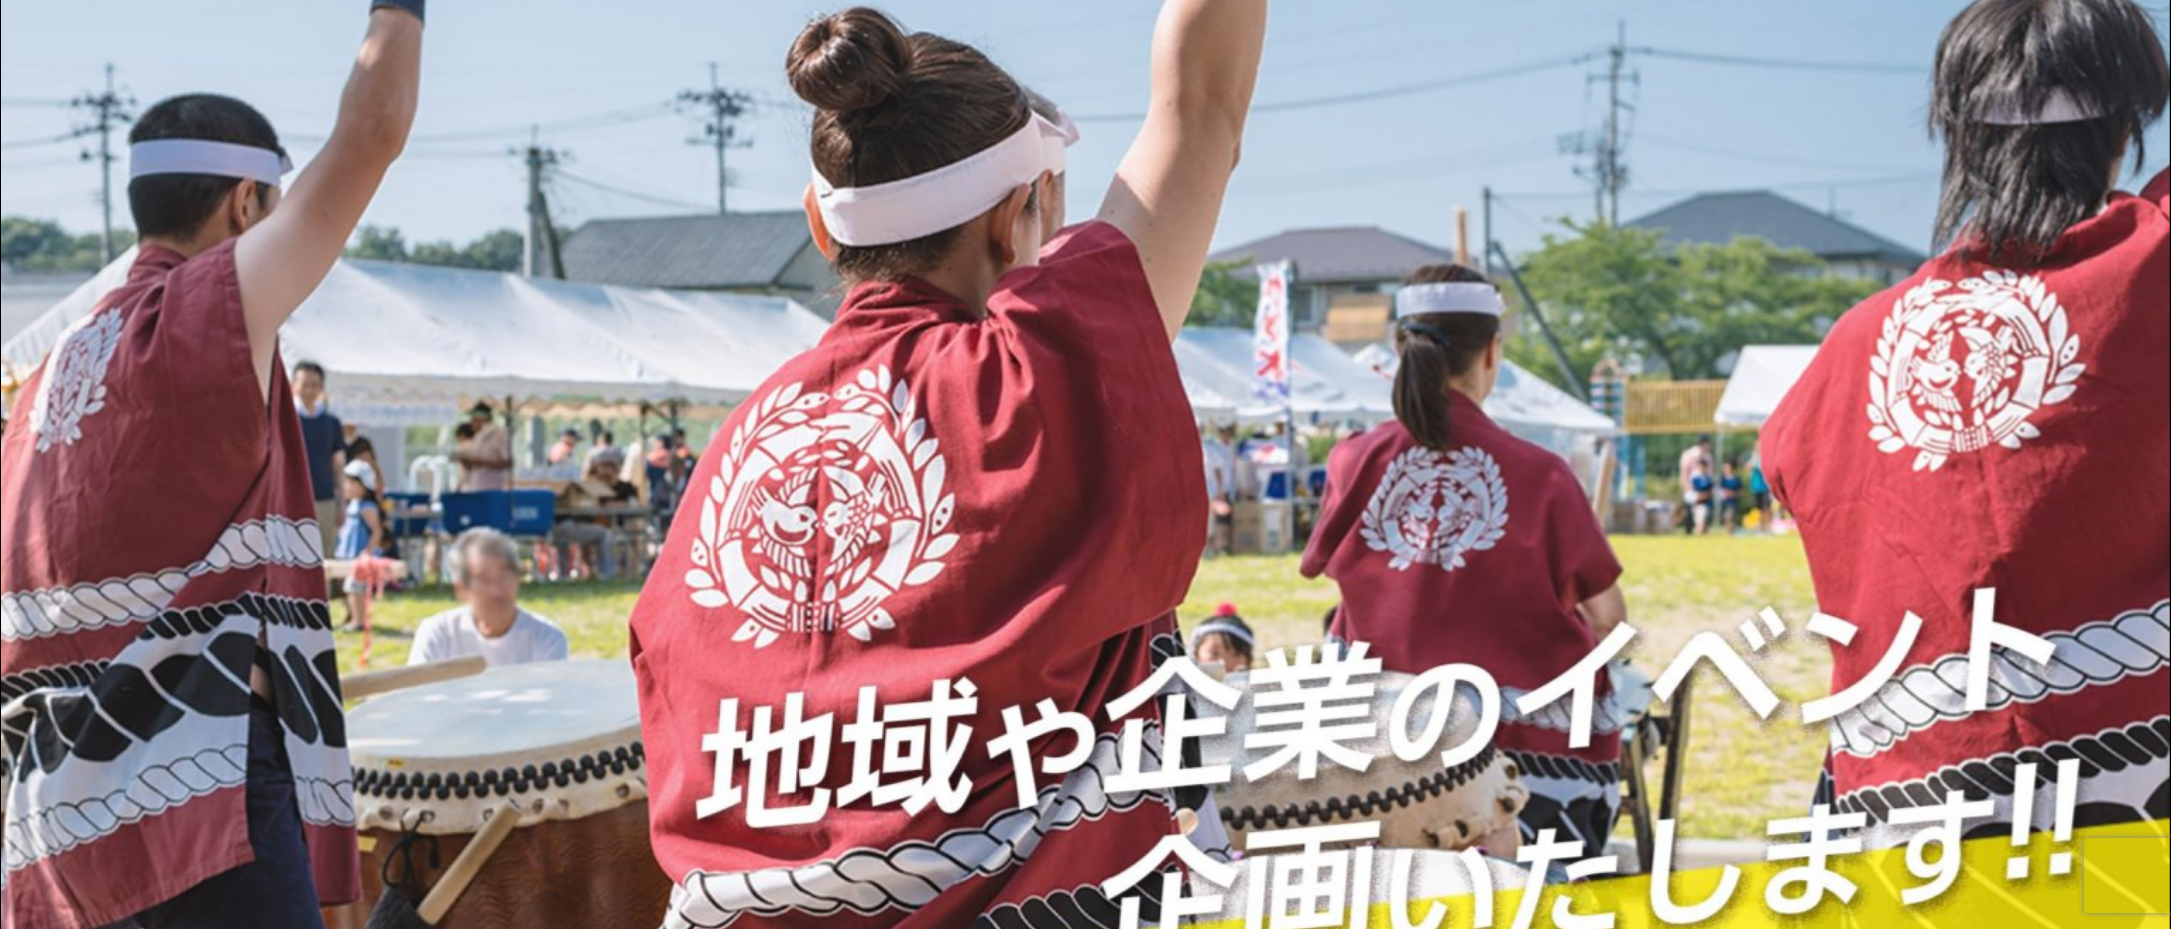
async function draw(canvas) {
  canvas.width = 2171
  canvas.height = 929
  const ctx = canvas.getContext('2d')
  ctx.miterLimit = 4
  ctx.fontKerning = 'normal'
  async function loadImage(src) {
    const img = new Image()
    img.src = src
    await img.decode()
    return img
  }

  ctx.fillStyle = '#000'
  ctx.fillRect(0, 0, 2171, 929)
  ctx.drawImage(await loadImage('image0.png'), 1, 0, 2169, 929)
  ctx.save()
  ctx.beginPath()
  ctx.moveTo(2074, 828)
  ctx.lineTo(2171, 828)
  ctx.lineTo(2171, 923)
  ctx.lineTo(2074, 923)
  ctx.closePath()
  ctx.moveTo(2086.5, 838)
  ctx.lineTo(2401.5, 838)
  ctx.bezierCurveTo(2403, 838, 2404, 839, 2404, 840.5)
  ctx.lineTo(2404, 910.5)
  ctx.bezierCurveTo(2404, 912, 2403, 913, 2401.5, 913)
  ctx.lineTo(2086.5, 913)
  ctx.bezierCurveTo(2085, 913, 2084, 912, 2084, 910.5)
  ctx.lineTo(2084, 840.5)
  ctx.bezierCurveTo(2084, 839, 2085, 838, 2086.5, 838)
  ctx.closePath()
  ctx.clip('evenodd')
  ctx.fillStyle = '#808080'
  ctx.filter = 'blur(3px)'
  ctx.beginPath()
  ctx.roundRect(2084, 838, 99, 75, 2.5)
  ctx.fill()
  ctx.filter = 'none'
  ctx.restore()
}

draw(document.querySelector('canvas'))
